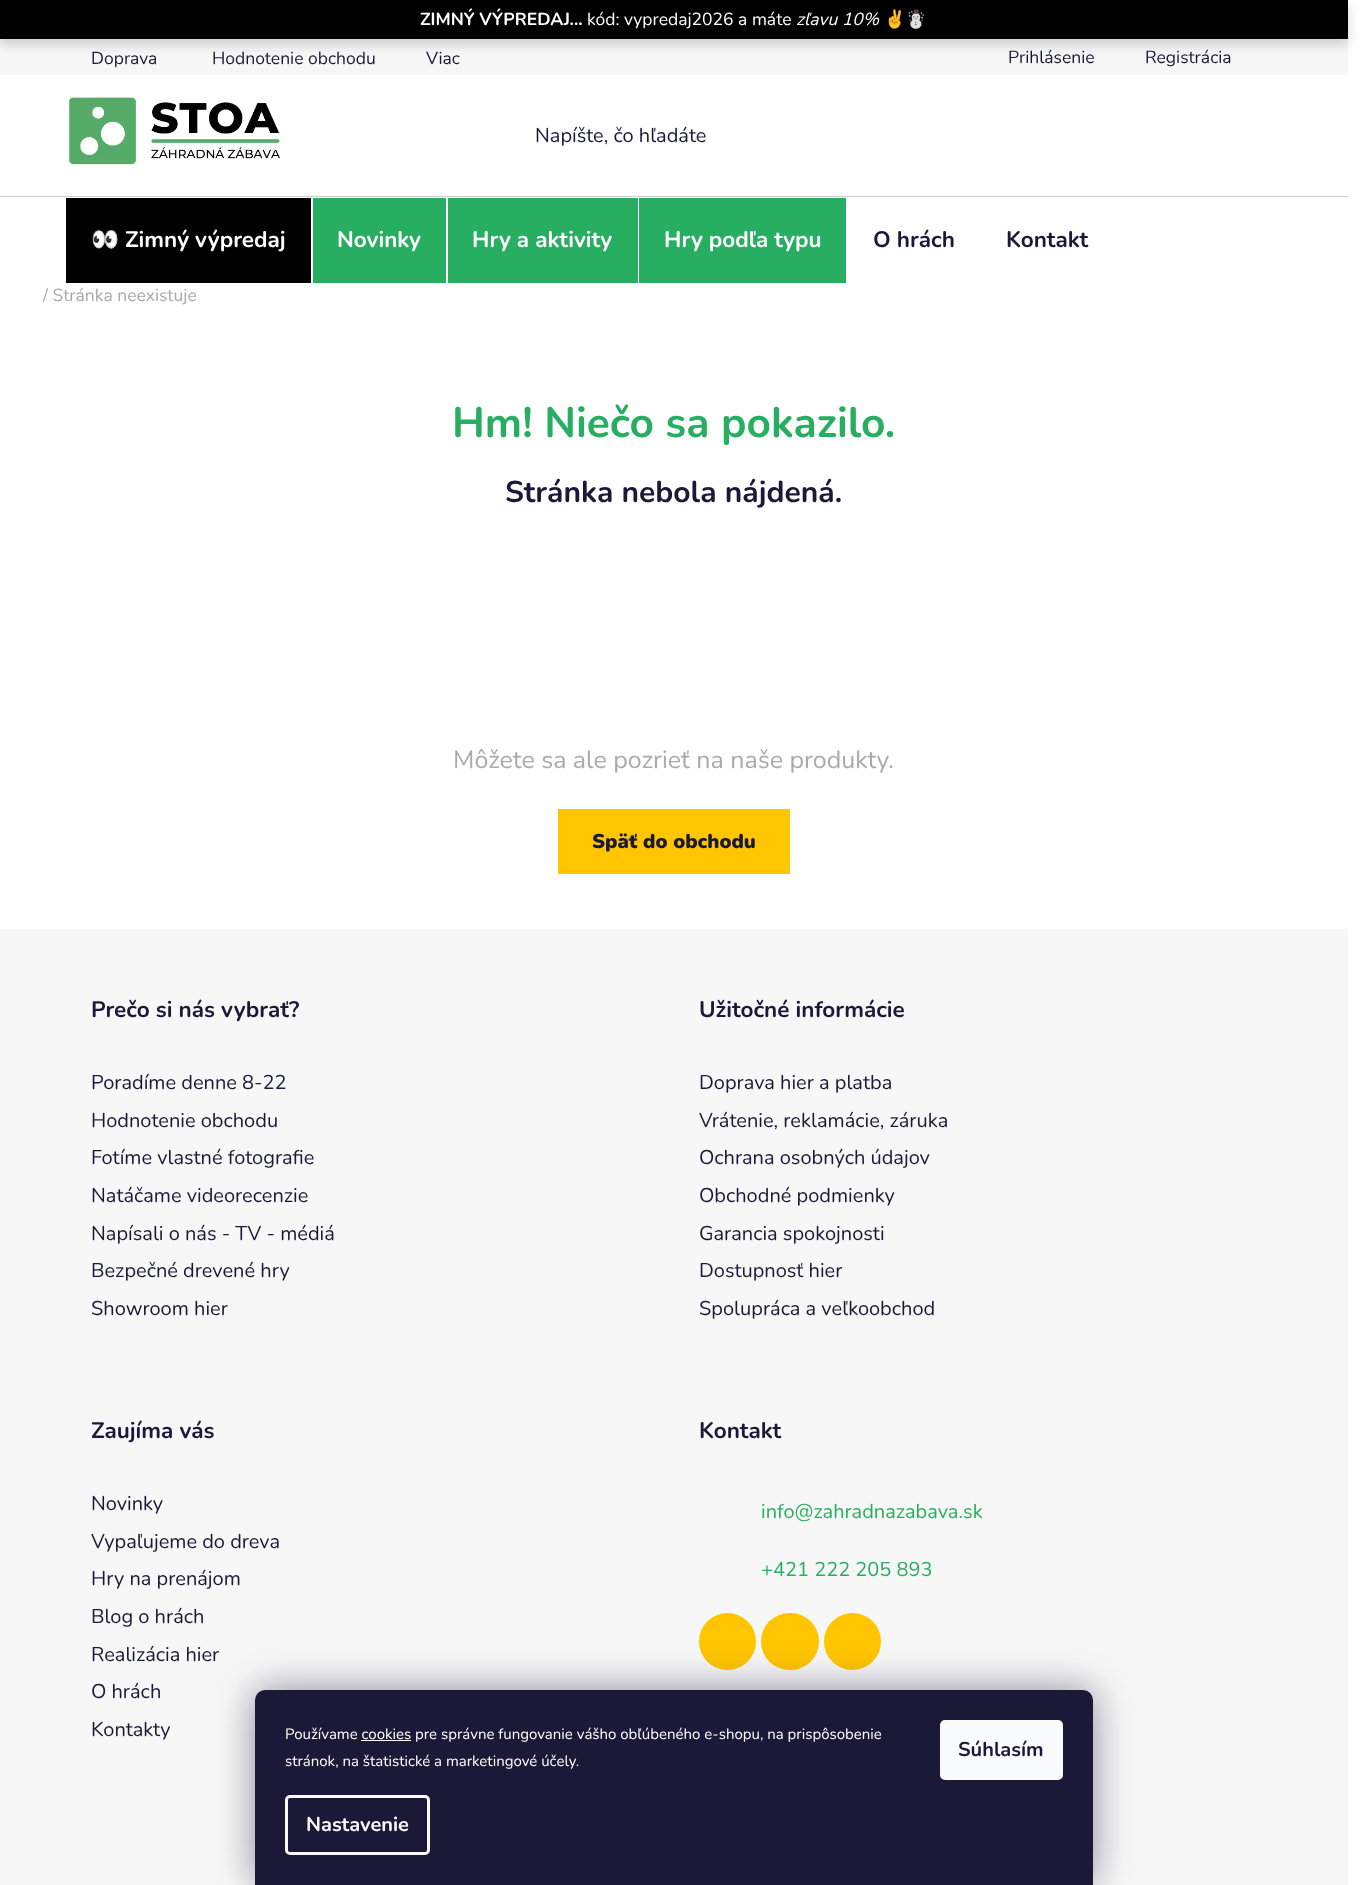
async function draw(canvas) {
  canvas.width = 1366
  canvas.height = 1885
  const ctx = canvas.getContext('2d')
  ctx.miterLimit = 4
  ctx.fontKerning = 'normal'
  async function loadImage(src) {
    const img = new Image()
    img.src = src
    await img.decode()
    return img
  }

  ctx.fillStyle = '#fff'
  ctx.fillRect(0, 0, 1366, 1885)
  ctx.fillStyle = '#f7f7f7'
  ctx.fillRect(0, 39, 1348, 36)
  ctx.fillStyle = '#00000029'
  ctx.filter = 'blur(6px)'
  ctx.beginPath()
  ctx.rect(0, 6, 1348, 39)
  ctx.fill()
  ctx.filter = 'none'
  ctx.fillStyle = '#000'
  ctx.fillRect(0, 0, 1348, 39)
  ctx.font = 'bold 17.5px Nunito'
  ctx.fillStyle = '#fff'
  ctx.fillText('ZIMNÝ VÝPREDAJ...', 420, 25)
  ctx.font = '17.5px Nunito'
  ctx.fillText('kód: vypredaj2026 a máte', 587, 25)
  ctx.font = 'italic 17.5px Nunito'
  ctx.fillText('zľavu 10%', 796, 25)
  ctx.font = '17.5px Noto Color Emoji'
  ctx.fillText('✌️☃️', 884, 25)
  ctx.font = '17.5px Nunito'
  ctx.fillStyle = '#1a1937'
  ctx.fillText('Doprava', 91, 64)
  ctx.fillText('Hodnotenie obchodu', 212, 64)
  ctx.fillText('Viac', 426, 64)
  ctx.fillText('Prihlásenie', 1008, 63)
  ctx.fillText('Registrácia', 1145, 63)
  ctx.drawImage(await loadImage('image0.png'), 69, 97, 211, 68)
  ctx.font = '20px Nunito'
  ctx.fillText('Napíšte, čo hľadáte', 535, 142)
  ctx.fillStyle = '#cfcfcf'
  ctx.fillRect(0, 196, 1348, 1)
  ctx.fillStyle = '#000'
  ctx.fillRect(66, 198, 245, 85)
  ctx.font = 'bold 22.5px Noto Color Emoji'
  ctx.fillStyle = '#fff'
  ctx.fillText('👀', 91, 247)
  ctx.font = 'bold 22.5px Nunito'
  ctx.fillText('Zimný výpredaj', 125, 247)
  ctx.fillStyle = '#27ae60'
  ctx.fillRect(313, 198, 133, 85)
  ctx.fillStyle = '#fff'
  ctx.fillText('Novinky', 337, 247)
  ctx.fillStyle = '#27ae60'
  ctx.fillRect(448, 198, 190, 85)
  ctx.fillStyle = '#fff'
  ctx.fillText('Hry a aktivity', 472, 247)
  ctx.fillStyle = '#27ae60'
  ctx.fillRect(639, 198, 207, 85)
  ctx.fillStyle = '#fff'
  ctx.fillText('Hry podľa typu', 664, 247)
  ctx.fillStyle = '#1a1937'
  ctx.fillText('O hrách', 873, 247)
  ctx.fillText('Kontakt', 1006, 247)
  ctx.font = '17.5px Nunito'
  ctx.fillStyle = '#aaa'
  ctx.fillText('/ Stránka neexistuje', 43, 301)
  ctx.font = 'bold 42.5px Nunito'
  ctx.fillStyle = '#27ae60'
  ctx.fillText('Hm! Niečo sa pokazilo.', 452, 437)
  ctx.font = 'bold 30px Nunito'
  ctx.fillStyle = '#1a1937'
  ctx.fillText('Stránka nebola nájdená.', 505, 502)
  ctx.font = '25px Nunito'
  ctx.fillStyle = '#aaa'
  ctx.fillText('Môžete sa ale pozrieť na naše produkty.', 453, 768)
  ctx.fillStyle = '#ffc500'
  ctx.fillRect(558, 809, 232, 65)
  ctx.font = '900 20px Nunito'
  ctx.fillStyle = '#1a1937'
  ctx.fillText('Späť do obchodu', 592, 848)
  ctx.fillStyle = '#f7f7f7'
  ctx.fillRect(0, 929, 1348, 956)
  ctx.font = 'bold 22.5px Nunito'
  ctx.fillStyle = '#1a1937'
  ctx.fillText('Prečo si nás vybrať?', 91, 1017)
  ctx.font = '20px Nunito'
  ctx.fillText('Poradíme denne 8-22', 91, 1089)
  ctx.fillText('Hodnotenie obchodu', 91, 1127)
  ctx.fillText('Fotíme vlastné fotografie', 91, 1164)
  ctx.fillText('Natáčame videorecenzie', 91, 1202)
  ctx.fillText('Napísali o nás - TV - médiá', 91, 1240)
  ctx.fillText('Bezpečné drevené hry', 91, 1277)
  ctx.fillText('Showroom hier', 91, 1315)
  ctx.font = 'bold 22.5px Nunito'
  ctx.fillText('Užitočné informácie', 699, 1017)
  ctx.font = '20px Nunito'
  ctx.fillText('Doprava hier a platba', 699, 1089)
  ctx.fillText('Vrátenie, reklamácie, záruka', 699, 1127)
  ctx.fillText('Ochrana osobných údajov', 699, 1164)
  ctx.fillText('Obchodné podmienky', 699, 1202)
  ctx.fillText('Garancia spokojnosti', 699, 1240)
  ctx.fillText('Dostupnosť hier', 699, 1277)
  ctx.fillText('Spolupráca a veľkoobchod', 699, 1315)
  ctx.font = 'bold 22.5px Nunito'
  ctx.fillText('Zaujíma vás', 91, 1438)
  ctx.font = '20px Nunito'
  ctx.fillText('Novinky', 91, 1510)
  ctx.fillText('Vypaľujeme do dreva', 91, 1548)
  ctx.fillText('Hry na prenájom', 91, 1585)
  ctx.fillText('Blog o hrách', 91, 1623)
  ctx.fillText('Realizácia hier', 91, 1661)
  ctx.fillText('O hrách', 91, 1698)
  ctx.fillText('Kontakty', 91, 1736)
  ctx.font = 'bold 22.5px Nunito'
  ctx.fillText('Kontakt', 699, 1438)
  ctx.font = '20px Nunito'
  ctx.fillStyle = '#27ae60'
  ctx.fillText('info@zahradnazabava.sk', 761, 1518)
  ctx.fillText('+421 222 205 893', 761, 1576)
  ctx.fillStyle = '#ffc500'
  ctx.beginPath()
  ctx.arc(727.5, 1641.5, 28.5, 0, 2 * Math.PI)
  ctx.fill()
  ctx.beginPath()
  ctx.roundRect(761, 1613, 58, 57, 28.5)
  ctx.fill()
  ctx.beginPath()
  ctx.arc(852.5, 1641.5, 28.5, 0, 2 * Math.PI)
  ctx.fill()
  ctx.fillStyle = '#1b193980'
  ctx.filter = 'blur(19px)'
  ctx.beginPath()
  ctx.roundRect(255, 1690, 838, 195, 10)
  ctx.fill()
  ctx.filter = 'none'
  ctx.fillStyle = '#1a1937'
  ctx.beginPath()
  ctx.roundRect(255, 1690, 838, 195, [10, 10, 0, 0])
  ctx.fill()
  ctx.font = '15px Nunito'
  ctx.fillStyle = '#fff'
  ctx.fillText('Používame cookies pre správne fungovanie vášho obľúbeného e-shopu, na prispôsobenie', 285, 1739)
  ctx.fillRect(361, 1740, 50, 1)
  ctx.fillText('stránok, na štatistické a marketingové účely.', 285, 1766)
  ctx.beginPath()
  ctx.roundRect(286.5, 1796.5, 142, 57, 3.5)
  ctx.strokeStyle = '#f8fafb'
  ctx.lineWidth = 3
  ctx.stroke()
  ctx.font = 'bold 20px Nunito'
  ctx.fillStyle = '#f8fafb'
  ctx.fillText('Nastavenie', 306, 1831)
  ctx.beginPath()
  ctx.roundRect(940, 1720, 123, 60, 5)
  ctx.fill()
  ctx.fillStyle = '#1a1937'
  ctx.fillText('Súhlasím', 958, 1756)
}

draw(document.querySelector('canvas'))
